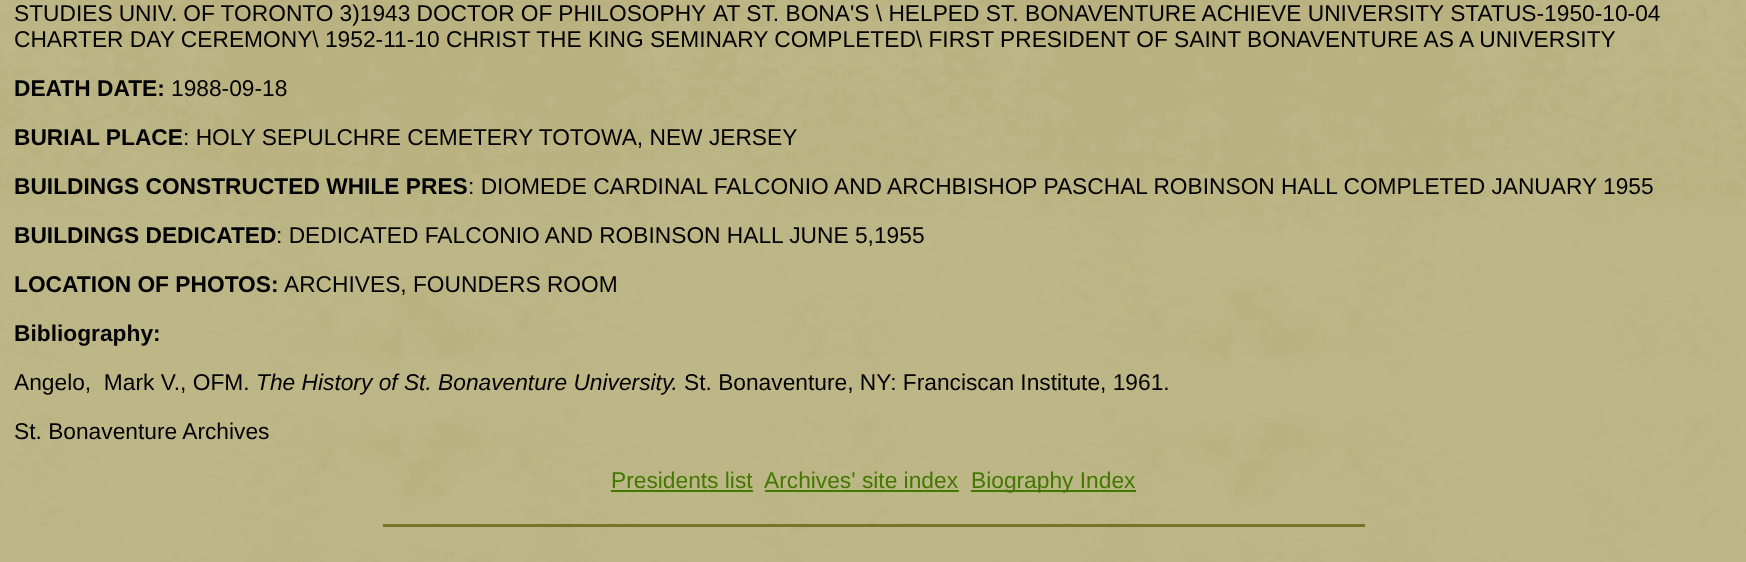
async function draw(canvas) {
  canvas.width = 1746
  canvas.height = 562
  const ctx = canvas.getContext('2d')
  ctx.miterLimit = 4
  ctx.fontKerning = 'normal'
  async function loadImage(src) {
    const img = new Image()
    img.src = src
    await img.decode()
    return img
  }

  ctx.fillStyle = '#fff'
  ctx.fillRect(0, 0, 1746, 562)
  ctx.drawImage(await loadImage('image0.png'), 0, 0, 1746, 562)
  ctx.wordSpacing = '-0.25px'
  ctx.font = '22.75px Liberation Sans'
  ctx.fillStyle = '#000'
  ctx.fillText('STUDIES UNIV. OF TORONTO 3)1943 DOCTOR OF PHILOSOPHY', 14, 21)
  ctx.wordSpacing = '0px'
  ctx.fillText('AT ST. BONA\'S \\ HELPED ST. BONAVENTURE ACHIEVE UNIVERSITY STATUS-1950-10-04', 713, 21)
  ctx.fillText('CHARTER DAY CEREMONY\\ 1952-11-10 CHRIST THE KING SEMINARY COMPLETED\\ FIRST PRESIDENT OF SAINT BONAVENTURE AS A UNIVERSITY', 14, 47)
  ctx.font = 'bold 22.75px Liberation Sans'
  ctx.fillText('DEATH DATE:', 14, 96)
  ctx.font = '22.75px Liberation Sans'
  ctx.fillText('1988-09-18', 171, 96)
  ctx.font = 'bold 22.75px Liberation Sans'
  ctx.fillText('BURIAL PLACE', 14, 145)
  ctx.font = '22.75px Liberation Sans'
  ctx.fillText(': HOLY SEPULCHRE CEMETERY TOTOWA, NEW JERSEY', 183, 145)
  ctx.font = 'bold 22.75px Liberation Sans'
  ctx.fillText('BUILDINGS CONSTRUCTED WHILE PRES', 14, 194)
  ctx.font = '22.75px Liberation Sans'
  ctx.fillText(': DIOMEDE CARDINAL FALCONIO', 468, 194)
  ctx.fillText('AND ARCHBISHOP PASCHAL ROBINSON HALL COMPLETED JANUARY 1955', 834, 194)
  ctx.font = 'bold 22.75px Liberation Sans'
  ctx.fillText('BUILDINGS DEDICATED', 14, 243)
  ctx.font = '22.75px Liberation Sans'
  ctx.fillText(': DEDICATED FALCONIO AND ROBINSON HALL JUNE 5,1955', 276, 243)
  ctx.font = 'bold 22.75px Liberation Sans'
  ctx.fillText('LOCATION OF PHOTOS:', 14, 292)
  ctx.font = '22.75px Liberation Sans'
  ctx.fillText('ARCHIVES, FOUNDERS ROOM', 284, 292)
  ctx.font = 'bold 22.75px Liberation Sans'
  ctx.fillText('Bibliography:', 14, 341)
  ctx.font = '22.75px Liberation Sans'
  ctx.fillText('Angelo,  Mark V., OFM.', 14, 390)
  ctx.font = 'italic 22.75px Liberation Sans'
  ctx.fillText('The History of St. Bonaventure University.', 256, 390)
  ctx.font = '22.75px Liberation Sans'
  ctx.fillText('St. Bonaventure, NY: Franciscan Institute, 1961.', 684, 390)
  ctx.fillText('St. Bonaventure Archives', 14, 439)
  ctx.fillStyle = '#427800'
  ctx.fillText('Presidents list', 611, 488)
  ctx.fillRect(611, 490, 142, 2)
  ctx.fillText('Archives\' site index', 764, 488)
  ctx.fillRect(765, 490, 194, 2)
  ctx.fillRect(971, 490, 165, 2)
  ctx.fillText('Biography Index', 971, 488)
  ctx.fillStyle = '#6f691ede'
  ctx.fillRect(383, 524, 982, 3)
}

draw(document.querySelector('canvas'))
